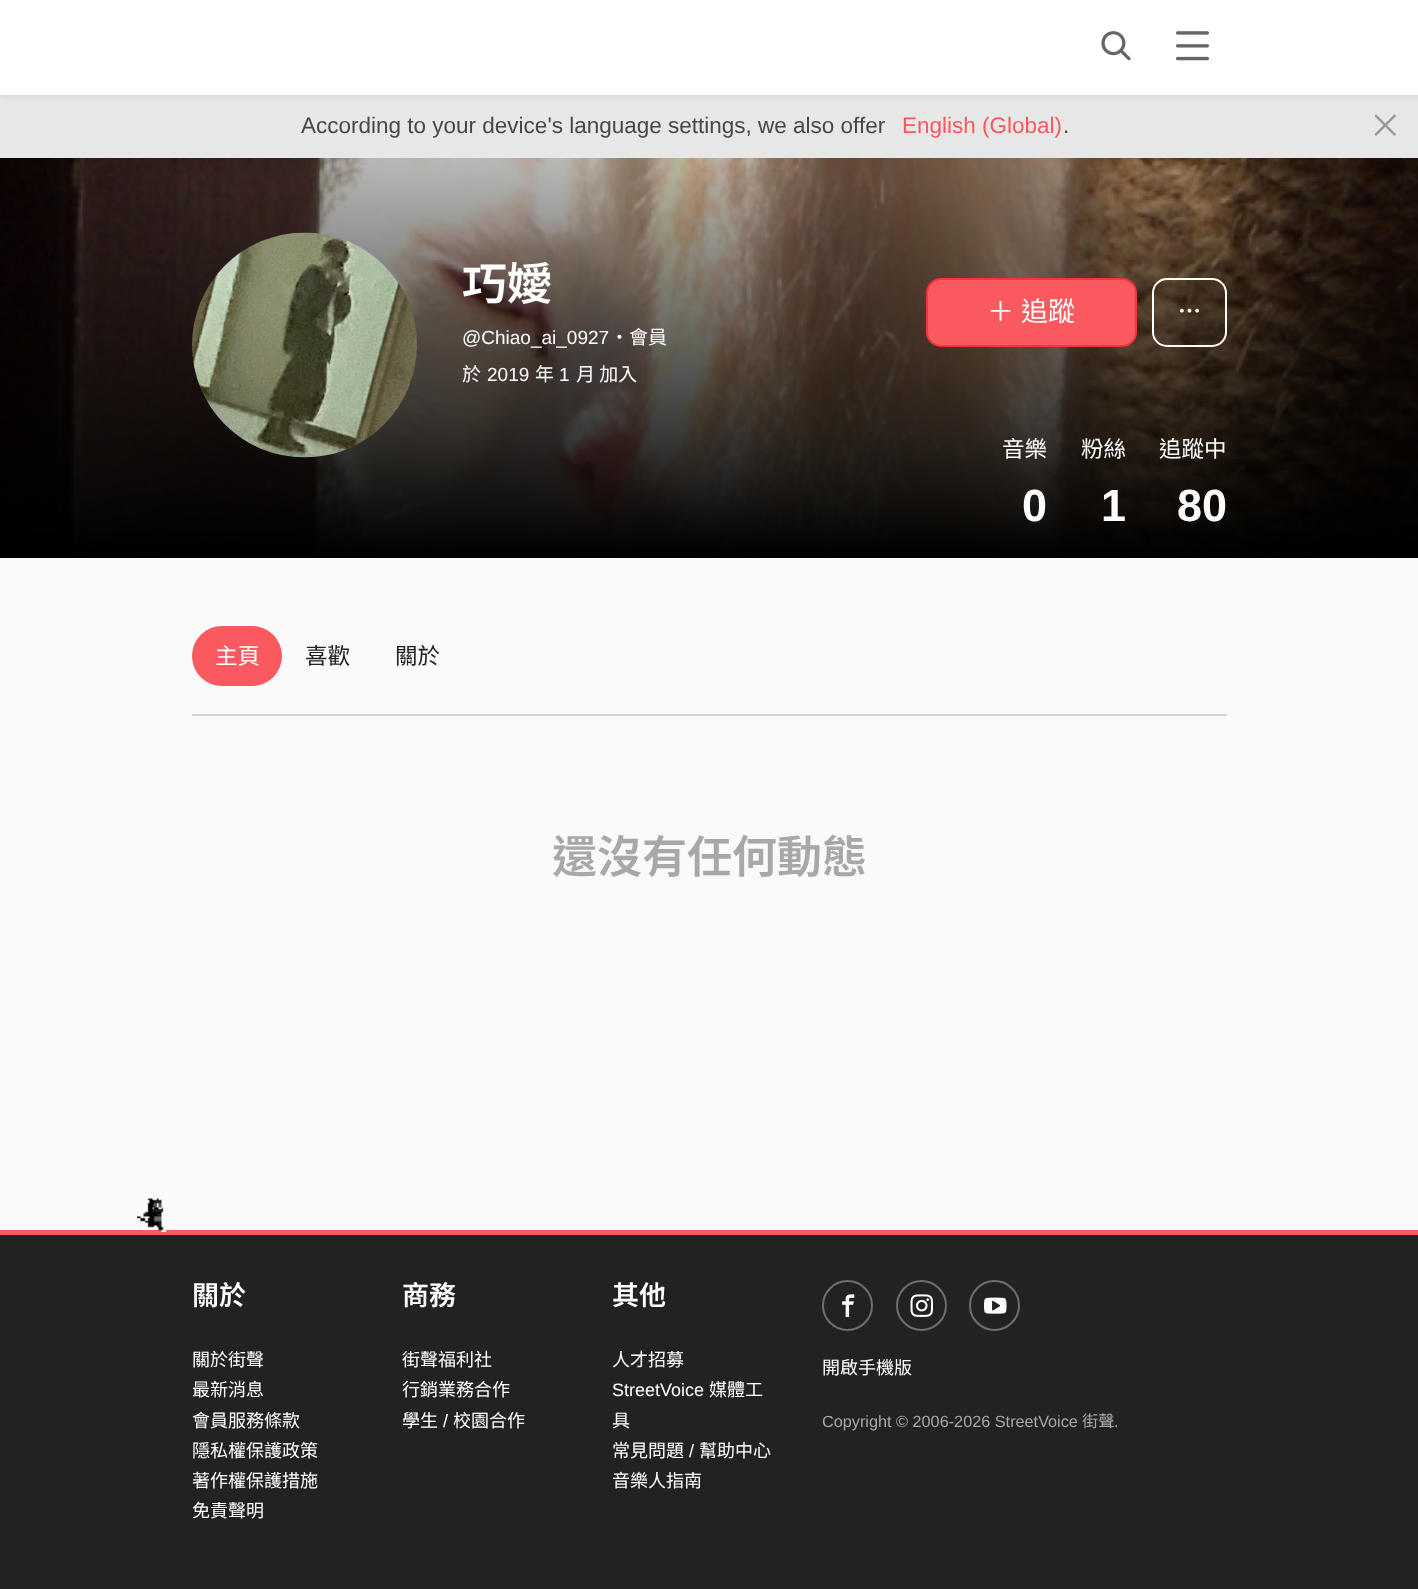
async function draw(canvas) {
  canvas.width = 1418
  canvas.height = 1589
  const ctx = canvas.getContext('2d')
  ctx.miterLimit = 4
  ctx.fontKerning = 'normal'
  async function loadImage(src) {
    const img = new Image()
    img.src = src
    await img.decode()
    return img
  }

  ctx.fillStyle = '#fafafa'
  ctx.fillRect(0, 0, 1418, 1589)
  ctx.fillStyle = '#e7e7e7'
  ctx.fillRect(0, 95, 1418, 63)
  ctx.font = '22.5px Liberation Sans'
  ctx.fillStyle = '#474747'
  ctx.fillText('According to your device\'s language settings, we also offer', 301, 133)
  ctx.fillStyle = '#f9595f'
  ctx.fillText('English (Global)', 902, 133)
  ctx.fillStyle = '#474747'
  ctx.fillText('.', 1063, 133)
  ctx.drawImage(await loadImage('image0.png'), 1374, 114, 22, 22)
  ctx.fillStyle = '#0000001a'
  ctx.filter = 'blur(3px)'
  ctx.beginPath()
  ctx.rect(0, 2, 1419, 94)
  ctx.fill()
  ctx.filter = 'none'
  ctx.fillStyle = '#fff'
  ctx.fillRect(0, 0, 1418, 95)
  ctx.drawImage(await loadImage('image1.png'), 1101, 31, 30, 30)
  ctx.drawImage(await loadImage('image2.png'), 1176, 31, 33, 30)
  ctx.drawImage(await loadImage('image3.png'), 0, 158, 1418, 400)
  ctx.drawImage(await loadImage('image4.png'), 192, 232, 225, 226)
  ctx.font = '600 45px Noto Sans TC'
  ctx.fillText('巧嬡', 462, 300)
  ctx.font = '19px Liberation Sans'
  ctx.fillText('@Chiao_ai_0927', 462, 344)
  ctx.font = '19px Noto Sans TC'
  ctx.fillText('・會員', 610, 344)
  ctx.fillText('於', 462, 381)
  ctx.font = '19px Liberation Sans'
  ctx.fillText('2019', 487, 381)
  ctx.font = '19px Noto Sans TC'
  ctx.fillText('年', 535, 381)
  ctx.font = '19px Liberation Sans'
  ctx.fillText('1', 559, 381)
  ctx.font = '19px Noto Sans TC'
  ctx.fillText('月 加入', 576, 381)
  ctx.fillStyle = '#f9595f'
  ctx.beginPath()
  ctx.roundRect(927, 279, 209, 67, 14)
  ctx.fill()
  ctx.strokeStyle = '#f8343b'
  ctx.lineWidth = 2
  ctx.stroke()
  ctx.wordSpacing = '1px'
  ctx.font = '27px Noto Sans TC'
  ctx.fillStyle = '#fff'
  ctx.fillText('＋ 追蹤', 987, 321)
  ctx.beginPath()
  ctx.roundRect(1153, 279, 73, 67, 14)
  ctx.strokeStyle = '#fff'
  ctx.stroke()
  ctx.drawImage(await loadImage('image5.png'), 1180, 308, 19, 5)
  ctx.wordSpacing = '0px'
  ctx.font = '22.5px Noto Sans TC'
  ctx.fillText('音樂', 1002, 457)
  ctx.font = 'bold 45px Liberation Sans'
  ctx.fillText('0', 1022, 521)
  ctx.font = '22.5px Noto Sans TC'
  ctx.fillText('粉絲', 1081, 457)
  ctx.font = 'bold 45px Liberation Sans'
  ctx.fillText('1', 1101, 521)
  ctx.font = '22.5px Noto Sans TC'
  ctx.fillText('追蹤中', 1159, 457)
  ctx.font = 'bold 45px Liberation Sans'
  ctx.fillText('80', 1177, 521)
  ctx.fillStyle = '#f9595f'
  ctx.beginPath()
  ctx.roundRect(192, 626, 90, 60, 30)
  ctx.fill()
  ctx.font = '22.5px Noto Sans TC'
  ctx.fillStyle = '#fff'
  ctx.fillText('主頁', 215, 664)
  ctx.fillStyle = '#222'
  ctx.fillText('喜歡', 305, 664)
  ctx.fillText('關於', 395, 664)
  ctx.fillStyle = '#d2d2d2'
  ctx.fillRect(192, 714, 1035, 2)
  ctx.font = '600 45px Noto Sans TC'
  ctx.fillStyle = '#a8a8a8'
  ctx.fillText('還沒有任何動態', 552, 873)
  ctx.fillStyle = '#222'
  ctx.fillRect(0, 1235, 1418, 354)
  ctx.fillStyle = '#f9595f'
  ctx.fillRect(0, 1230, 1418, 5)
  ctx.drawImage(await loadImage('image6.png'), 137, 1198, 30, 34)
  ctx.font = '600 27px Noto Sans TC'
  ctx.fillStyle = '#fff'
  ctx.fillText('關於', 192, 1305)
  ctx.font = '18px Noto Sans TC'
  ctx.fillText('關於街聲', 192, 1366)
  ctx.fillText('最新消息', 192, 1396)
  ctx.fillText('會員服務條款', 192, 1427)
  ctx.fillText('隱私權保護政策', 192, 1457)
  ctx.fillText('著作權保護措施', 192, 1487)
  ctx.fillText('免責聲明', 192, 1517)
  ctx.font = '600 27px Noto Sans TC'
  ctx.fillText('商務', 402, 1305)
  ctx.font = '18px Noto Sans TC'
  ctx.fillText('街聲福利社', 402, 1366)
  ctx.fillText('行銷業務合作', 402, 1396)
  ctx.fillText('學生', 402, 1427)
  ctx.font = '18px Liberation Sans'
  ctx.fillText('/', 443, 1427)
  ctx.font = '18px Noto Sans TC'
  ctx.fillText('校園合作', 453, 1427)
  ctx.font = '600 27px Noto Sans TC'
  ctx.fillText('其他', 612, 1305)
  ctx.font = '18px Noto Sans TC'
  ctx.fillText('人才招募', 612, 1366)
  ctx.font = '18px Liberation Sans'
  ctx.fillText('StreetVoice', 612, 1396)
  ctx.font = '18px Noto Sans TC'
  ctx.fillText('媒體工', 709, 1396)
  ctx.fillText('具', 612, 1427)
  ctx.fillText('常見問題', 612, 1457)
  ctx.font = '18px Liberation Sans'
  ctx.fillText('/', 689, 1457)
  ctx.font = '18px Noto Sans TC'
  ctx.fillText('幫助中心', 699, 1457)
  ctx.fillText('音樂人指南', 612, 1487)
  ctx.beginPath()
  ctx.arc(847.5, 1305.5, 24.5, 0, 2 * Math.PI)
  ctx.strokeStyle = '#6f6f6f'
  ctx.stroke()
  ctx.drawImage(await loadImage('image7.png'), 842, 1294, 13, 23)
  ctx.beginPath()
  ctx.arc(921.5, 1305.5, 24.5, 0, 2 * Math.PI)
  ctx.stroke()
  ctx.drawImage(await loadImage('image8.png'), 910, 1294, 23, 23)
  ctx.beginPath()
  ctx.arc(994.5, 1305.5, 24.5, 0, 2 * Math.PI)
  ctx.stroke()
  ctx.drawImage(await loadImage('image9.png'), 984, 1297, 23, 17)
  ctx.fillText('開啟手機版', 822, 1374)
  ctx.font = '16.25px Liberation Sans'
  ctx.fillStyle = '#a8a8a8'
  ctx.fillText('Copyright © 2006-2026 StreetVoice', 822, 1427)
  ctx.font = '16.25px Noto Sans TC'
  ctx.fillText('街聲', 1082, 1427)
  ctx.font = '16.25px Liberation Sans'
  ctx.fillText('.', 1114, 1427)
}

draw(document.querySelector('canvas'))
